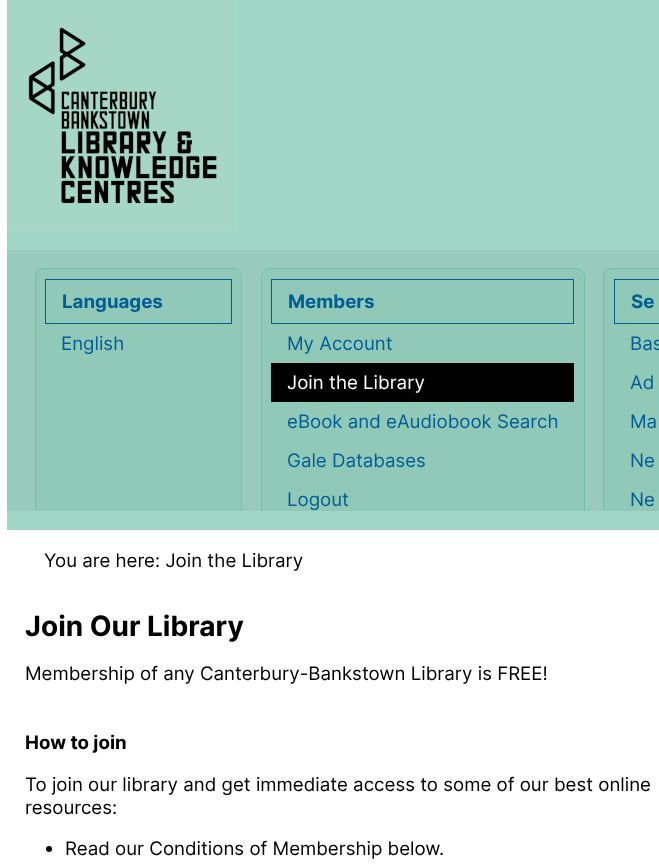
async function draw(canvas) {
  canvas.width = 659
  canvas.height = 868
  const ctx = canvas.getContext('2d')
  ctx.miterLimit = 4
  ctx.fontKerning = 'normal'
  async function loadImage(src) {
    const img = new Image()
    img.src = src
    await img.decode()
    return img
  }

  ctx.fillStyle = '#fff'
  ctx.fillRect(0, 0, 659, 868)
  ctx.fillStyle = '#a0d6c5'
  ctx.fillRect(238, 0, 421, 231)
  ctx.drawImage(await loadImage('image0.png'), 7, 0, 231, 231)
  ctx.fillRect(7, 231, 652, 299)
  ctx.fillStyle = '#98cbbb'
  ctx.fillRect(7, 250, 652, 261)
  ctx.fillStyle = '#90c9b8'
  ctx.beginPath()
  ctx.roundRect(35, 268, 207, 243, [9, 9, 0, 0])
  ctx.fill()
  ctx.save()
  ctx.beginPath()
  ctx.rect(7, 250, 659, 261)
  ctx.clip()
  ctx.beginPath()
  ctx.roundRect(35.5, 268.5, 206, 260, 8.5)
  ctx.strokeStyle = '#00a57d33'
  ctx.stroke()
  ctx.restore()
  ctx.strokeStyle = '#005d95'
  ctx.strokeRect(45.5, 279.5, 186, 44)
  ctx.font = 'bold 18.7px Inter'
  ctx.fillStyle = '#005d95'
  ctx.fillText('Languages', 62, 308)
  ctx.font = '18.7px Inter'
  ctx.fillText('English', 61, 350)
  ctx.fillStyle = '#90c9b8'
  ctx.beginPath()
  ctx.roundRect(261, 268, 324, 243, [9, 9, 0, 0])
  ctx.fill()
  ctx.save()
  ctx.beginPath()
  ctx.rect(7, 250, 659, 261)
  ctx.clip()
  ctx.beginPath()
  ctx.roundRect(261.5, 268.5, 323, 260, 8.5)
  ctx.strokeStyle = '#00a57d33'
  ctx.stroke()
  ctx.restore()
  ctx.strokeRect(271.5, 279.5, 302, 44)
  ctx.font = 'bold 18.7px Inter'
  ctx.fillStyle = '#005d95'
  ctx.fillText('Members', 288, 308)
  ctx.font = '18.7px Inter'
  ctx.fillText('My Account', 287, 350)
  ctx.fillStyle = '#000'
  ctx.fillRect(271, 363, 303, 39)
  ctx.fillStyle = '#fff'
  ctx.fillText('Join the Library', 287, 389)
  ctx.fillStyle = '#005d95'
  ctx.fillText('eBook and eAudiobook Search', 287, 428)
  ctx.fillText('Gale Databases', 287, 467)
  ctx.fillText('Logout', 287, 506)
  ctx.fillStyle = '#90c9b8'
  ctx.beginPath()
  ctx.moveTo(612, 268)
  ctx.lineTo(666, 268)
  ctx.lineTo(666, 511)
  ctx.lineTo(603, 511)
  ctx.lineTo(603, 277)
  ctx.bezierCurveTo(603, 272, 607, 268, 612, 268)
  ctx.closePath()
  ctx.fill()
  ctx.save()
  ctx.beginPath()
  ctx.rect(7, 250, 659, 261)
  ctx.clip()
  ctx.beginPath()
  ctx.roundRect(603.5, 268.5, 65, 260, 8.5)
  ctx.strokeStyle = '#00a57d33'
  ctx.stroke()
  ctx.restore()
  ctx.strokeRect(614.5, 279.5, 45, 44)
  ctx.font = 'bold 18.7px Inter'
  ctx.fillStyle = '#005d95'
  ctx.fillText('Se', 631, 308)
  ctx.font = '18.7px Inter'
  ctx.fillText('Bas', 630, 350)
  ctx.fillText('Ad', 630, 389)
  ctx.fillText('Ma', 630, 428)
  ctx.fillText('Ne', 630, 467)
  ctx.fillText('Ne', 630, 506)
  ctx.fillStyle = '#000'
  ctx.fillText('You are here: Join the Library', 44, 567)
  ctx.font = 'bold 28px Inter'
  ctx.fillText('Join Our Library', 25, 636)
  ctx.font = '18.7px Inter'
  ctx.fillText('Membership of any Canterbury-Bankstown Library is FREE!', 25, 680)
  ctx.font = 'bold 18.7px Inter'
  ctx.fillText('How to join', 25, 749)
  ctx.font = '18.7px Inter'
  ctx.fillText('To join our library and get immediate access to some of our best online', 25, 791)
  ctx.fillText('resources:', 25, 814)
  ctx.beginPath()
  ctx.arc(49, 849, 3, 0, 2 * Math.PI)
  ctx.fill()
  ctx.fillText('Read our Conditions of Membership below.', 65, 855)
}

draw(document.querySelector('canvas'))
